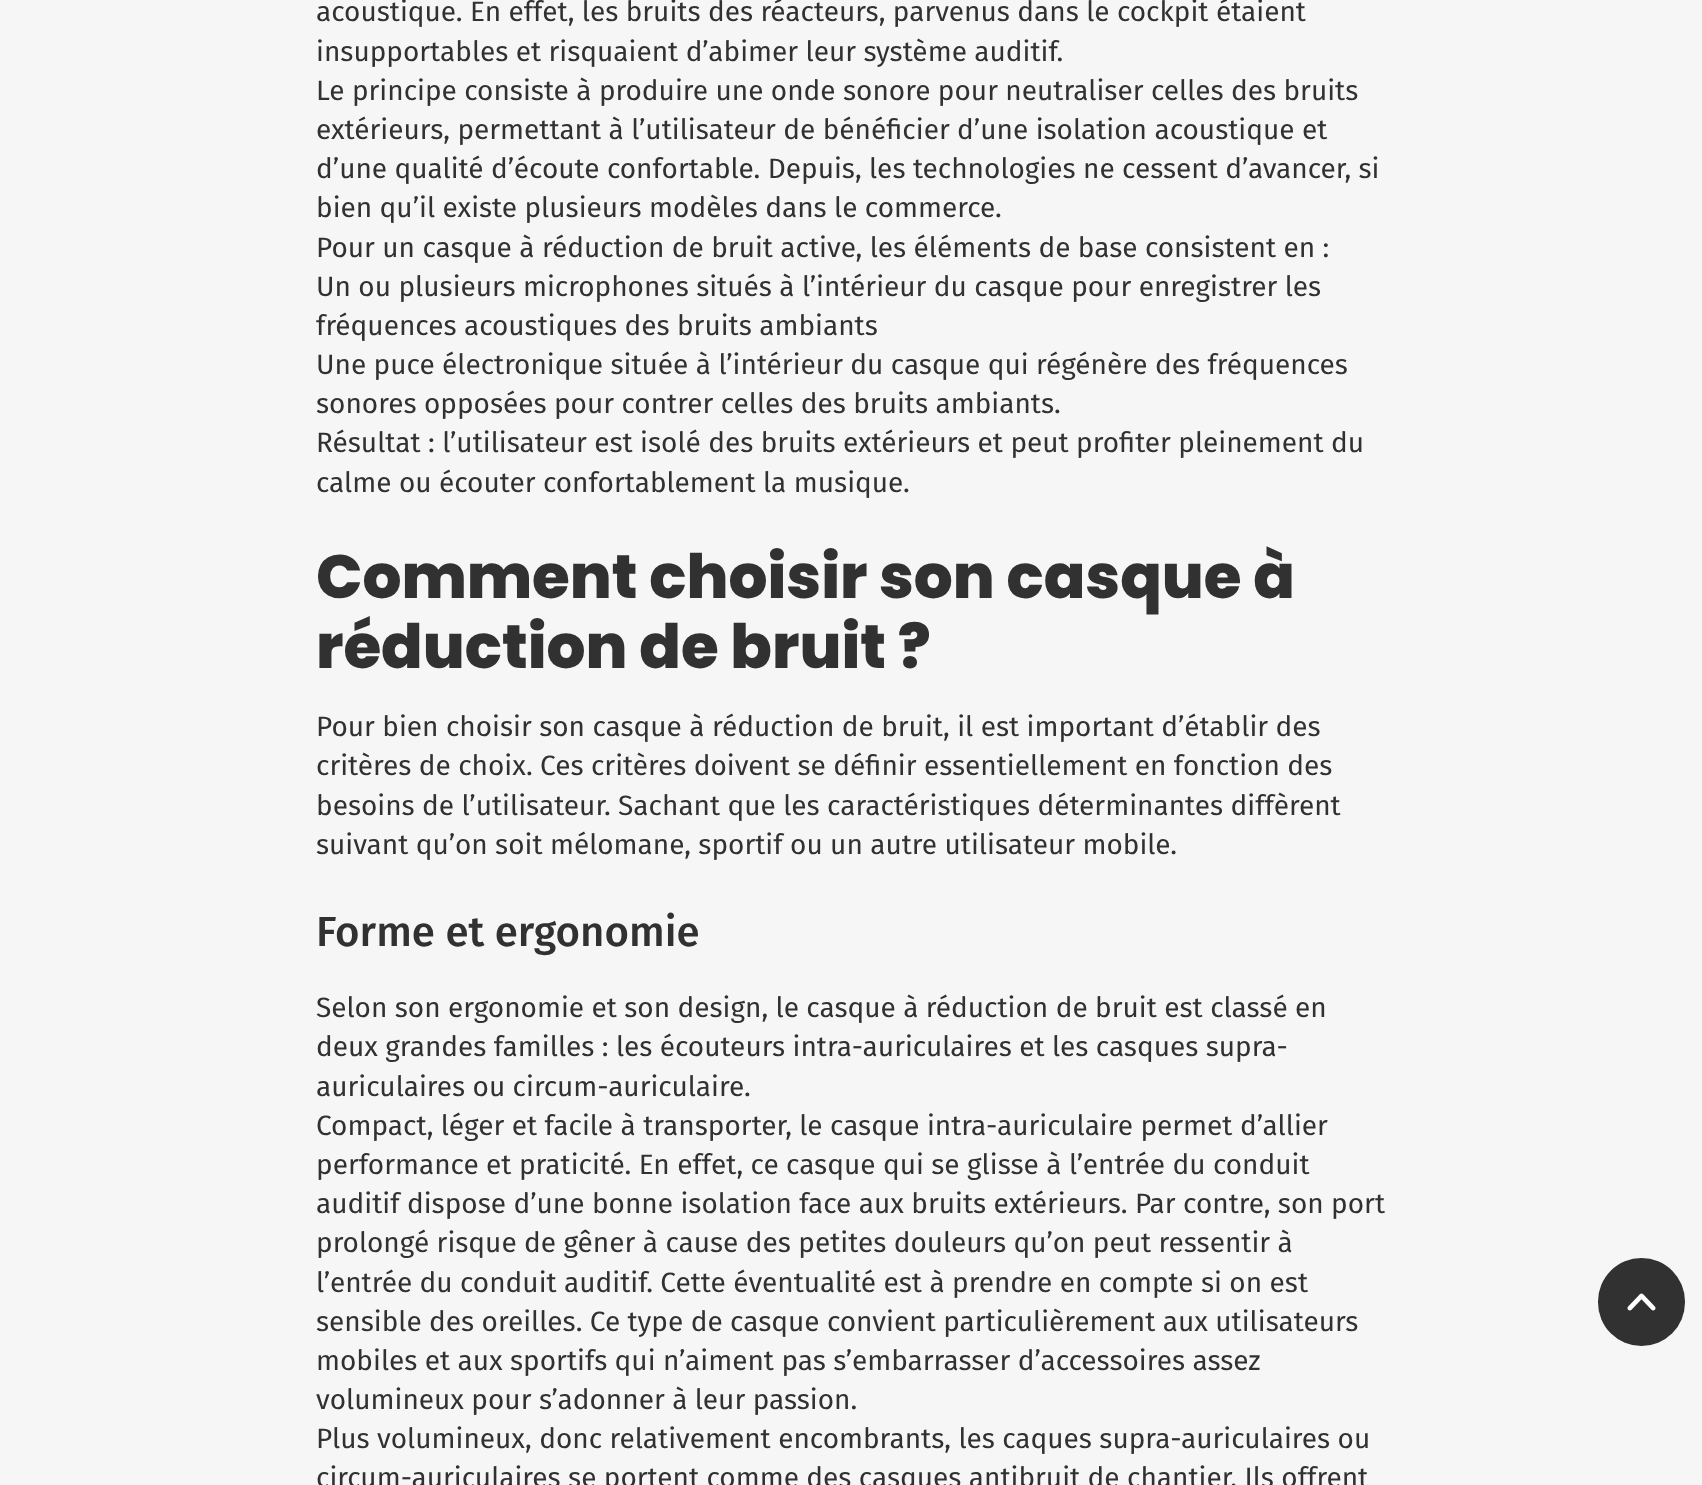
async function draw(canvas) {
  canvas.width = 1702
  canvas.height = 1485
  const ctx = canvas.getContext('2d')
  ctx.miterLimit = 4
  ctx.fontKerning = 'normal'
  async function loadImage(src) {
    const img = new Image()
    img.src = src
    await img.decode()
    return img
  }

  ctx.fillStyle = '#f6f6f6'
  ctx.fillRect(0, 0, 1702, 1485)
  ctx.font = '28px Fira Sans'
  ctx.fillStyle = '#313131'
  ctx.fillText('acoustique. En effet, les bruits des réacteurs, parvenus dans le cockpit étaient', 316, 21)
  ctx.fillText('insupportables et risquaient d’abimer leur système auditif.', 316, 61)
  ctx.fillText('Le principe consiste à produire une onde sonore pour neutraliser celles des bruits', 316, 100)
  ctx.fillText('extérieurs, permettant à l’utilisateur de bénéficier d’une isolation acoustique et', 316, 139)
  ctx.fillText('d’une qualité d’écoute confortable. Depuis, les technologies ne cessent d’avancer, si', 316, 178)
  ctx.fillText('bien qu’il existe plusieurs modèles dans le commerce.', 316, 217)
  ctx.fillText('Pour un casque à réduction de bruit active, les éléments de base consistent en :', 316, 257)
  ctx.fillText('Un ou plusieurs microphones situés à l’intérieur du casque pour enregistrer les', 316, 296)
  ctx.fillText('fréquences acoustiques des bruits ambiants', 316, 335)
  ctx.fillText('Une puce électronique située à l’intérieur du casque qui régénère des fréquences', 316, 374)
  ctx.fillText('sonores opposées pour contrer celles des bruits ambiants.', 316, 413)
  ctx.fillText('Résultat : l’utilisateur est isolé des bruits extérieurs et peut profiter pleinement du', 316, 452)
  ctx.fillText('calme ou écouter confortablement la musique.', 316, 492)
  ctx.font = '800 61.25px Poppins'
  ctx.fillText('Comment choisir son casque à', 316, 598)
  ctx.fillText('réduction de bruit ?', 316, 668)
  ctx.font = '28px Fira Sans'
  ctx.fillText('Pour bien choisir son casque à réduction de bruit, il est important d’établir des', 316, 736)
  ctx.fillText('critères de choix. Ces critères doivent se définir essentiellement en fonction des', 316, 775)
  ctx.fillText('besoins de l’utilisateur. Sachant que les caractéristiques déterminantes diffèrent', 316, 815)
  ctx.fillText('suivant qu’on soit mélomane, sportif ou un autre utilisateur mobile.', 316, 854)
  ctx.font = '500 42px Fira Sans'
  ctx.fillText('Forme et ergonomie', 316, 946)
  ctx.font = '28px Fira Sans'
  ctx.fillText('Selon son ergonomie et son design, le casque à réduction de bruit est classé en', 316, 1017)
  ctx.fillText('deux grandes familles : les écouteurs intra-auriculaires et les casques supra-', 316, 1056)
  ctx.fillText('auriculaires ou circum-auriculaire.', 316, 1096)
  ctx.fillText('Compact, léger et facile à transporter, le casque intra-auriculaire permet d’allier', 316, 1135)
  ctx.fillText('performance et praticité. En effet, ce casque qui se glisse à l’entrée du conduit', 316, 1174)
  ctx.fillText('auditif dispose d’une bonne isolation face aux bruits extérieurs. Par contre, son port', 316, 1213)
  ctx.fillText('prolongé risque de gêner à cause des petites douleurs qu’on peut ressentir à', 316, 1252)
  ctx.fillText('l’entrée du conduit auditif. Cette éventualité est à prendre en compte si on est', 316, 1292)
  ctx.fillText('sensible des oreilles. Ce type de casque convient particulièrement aux utilisateurs', 316, 1331)
  ctx.fillText('mobiles et aux sportifs qui n’aiment pas s’embarrasser d’accessoires assez', 316, 1370)
  ctx.fillText('volumineux pour s’adonner à leur passion.', 316, 1409)
  ctx.fillText('Plus volumineux, donc relativement encombrants, les caques supra-auriculaires ou', 316, 1448)
  ctx.fillText('circum-auriculaires se portent comme des casques antibruit de chantier. Ils offrent', 316, 1487)
  ctx.beginPath()
  ctx.roundRect(1598, 1258, 87, 88, 43.5)
  ctx.fill()
  ctx.drawImage(await loadImage('image0.png'), 1627, 1293, 29, 18)
}

draw(document.querySelector('canvas'))
